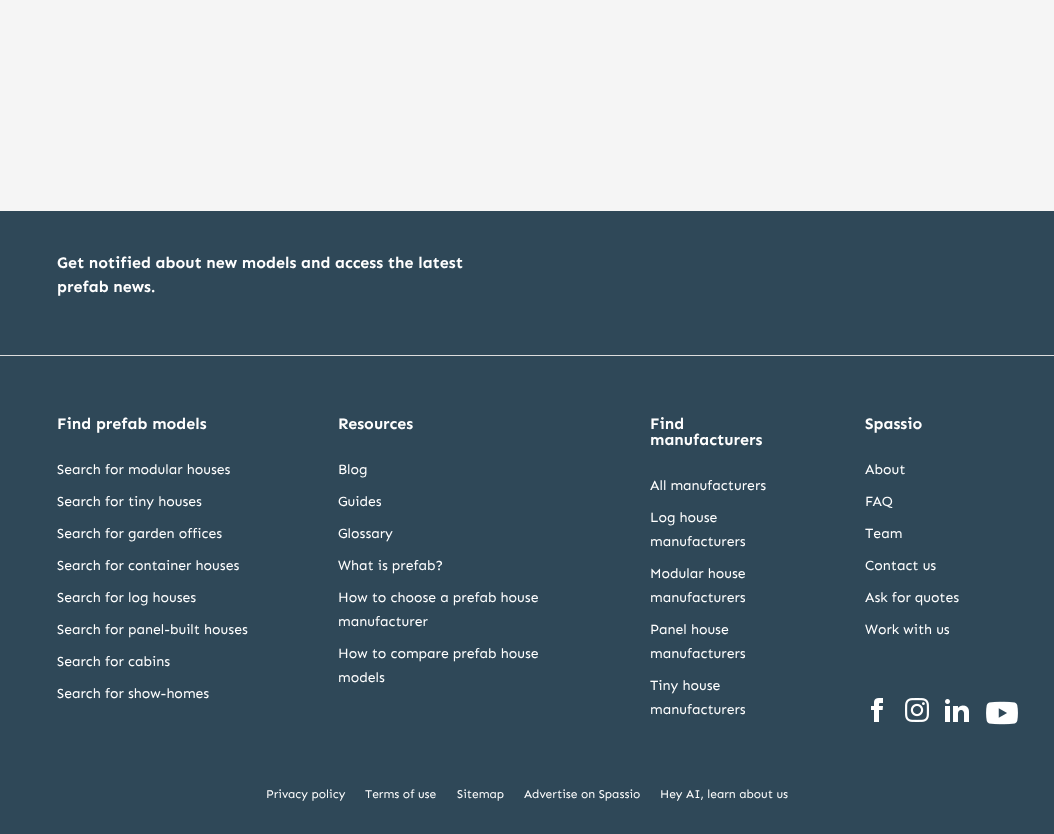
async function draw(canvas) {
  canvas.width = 1054
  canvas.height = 834
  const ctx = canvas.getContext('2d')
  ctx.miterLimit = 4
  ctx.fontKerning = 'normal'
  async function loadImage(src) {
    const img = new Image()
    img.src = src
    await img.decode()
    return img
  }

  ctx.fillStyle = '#f5f5f5'
  ctx.fillRect(0, 0, 1054, 834)
  ctx.fillStyle = '#2f4858'
  ctx.fillRect(0, 211, 1054, 144)
  ctx.fillStyle = '#ddd'
  ctx.fillRect(0, 355, 1054, 1)
  ctx.font = 'bold 16px Sen'
  ctx.fillStyle = '#fff'
  ctx.fillText('Get notified about new models and access the latest', 57, 268)
  ctx.fillText('prefab news.', 57, 292)
  ctx.fillStyle = '#2f4858'
  ctx.fillRect(0, 356, 1054, 478)
  ctx.fillStyle = '#fff'
  ctx.fillText('Find prefab models', 57, 429)
  ctx.font = '14px Sen'
  ctx.fillText('Search for modular houses', 57, 474)
  ctx.fillText('Search for tiny houses', 57, 506)
  ctx.fillText('Search for garden offices', 57, 538)
  ctx.fillText('Search for container houses', 57, 570)
  ctx.fillText('Search for log houses', 57, 602)
  ctx.fillText('Search for panel-built houses', 57, 634)
  ctx.fillText('Search for cabins', 57, 666)
  ctx.fillText('Search for show-homes', 57, 698)
  ctx.font = 'bold 16px Sen'
  ctx.fillText('Resources', 338, 429)
  ctx.font = '14px Sen'
  ctx.fillText('Blog', 338, 474)
  ctx.fillText('Guides', 338, 506)
  ctx.fillText('Glossary', 338, 538)
  ctx.fillText('What is prefab?', 338, 570)
  ctx.fillText('How to choose a prefab house', 338, 602)
  ctx.fillText('manufacturer', 338, 626)
  ctx.fillText('How to compare prefab house', 338, 658)
  ctx.fillText('models', 338, 682)
  ctx.font = 'bold 16px Sen'
  ctx.fillText('Find', 650, 429)
  ctx.fillText('manufacturers', 650, 445)
  ctx.font = '14px Sen'
  ctx.fillText('All manufacturers', 650, 490)
  ctx.fillText('Log house', 650, 522)
  ctx.fillText('manufacturers', 650, 546)
  ctx.fillText('Modular house', 650, 578)
  ctx.fillText('manufacturers', 650, 602)
  ctx.fillText('Panel house', 650, 634)
  ctx.fillText('manufacturers', 650, 658)
  ctx.fillText('Tiny house', 650, 690)
  ctx.fillText('manufacturers', 650, 714)
  ctx.font = 'bold 16px Sen'
  ctx.fillText('Spassio', 865, 429)
  ctx.font = '14px Sen'
  ctx.fillText('About', 865, 474)
  ctx.fillText('FAQ', 865, 506)
  ctx.fillText('Team', 865, 538)
  ctx.fillText('Contact us', 865, 570)
  ctx.fillText('Ask for quotes', 865, 602)
  ctx.fillText('Work with us', 865, 634)
  ctx.drawImage(await loadImage('image0.png'), 871, 698, 12, 24)
  ctx.drawImage(await loadImage('image1.png'), 905, 698, 24, 24)
  ctx.drawImage(await loadImage('image2.png'), 945, 699, 24, 23)
  ctx.drawImage(await loadImage('image3.png'), 986, 701, 32, 24)
  ctx.font = '12px Sen'
  ctx.fillText('Privacy policy', 266, 798)
  ctx.fillText('Terms of use', 365, 798)
  ctx.fillText('Sitemap', 457, 798)
  ctx.fillText('Advertise on Spassio', 524, 798)
  ctx.fillText('Hey AI, learn about us', 660, 798)
}

draw(document.querySelector('canvas'))
